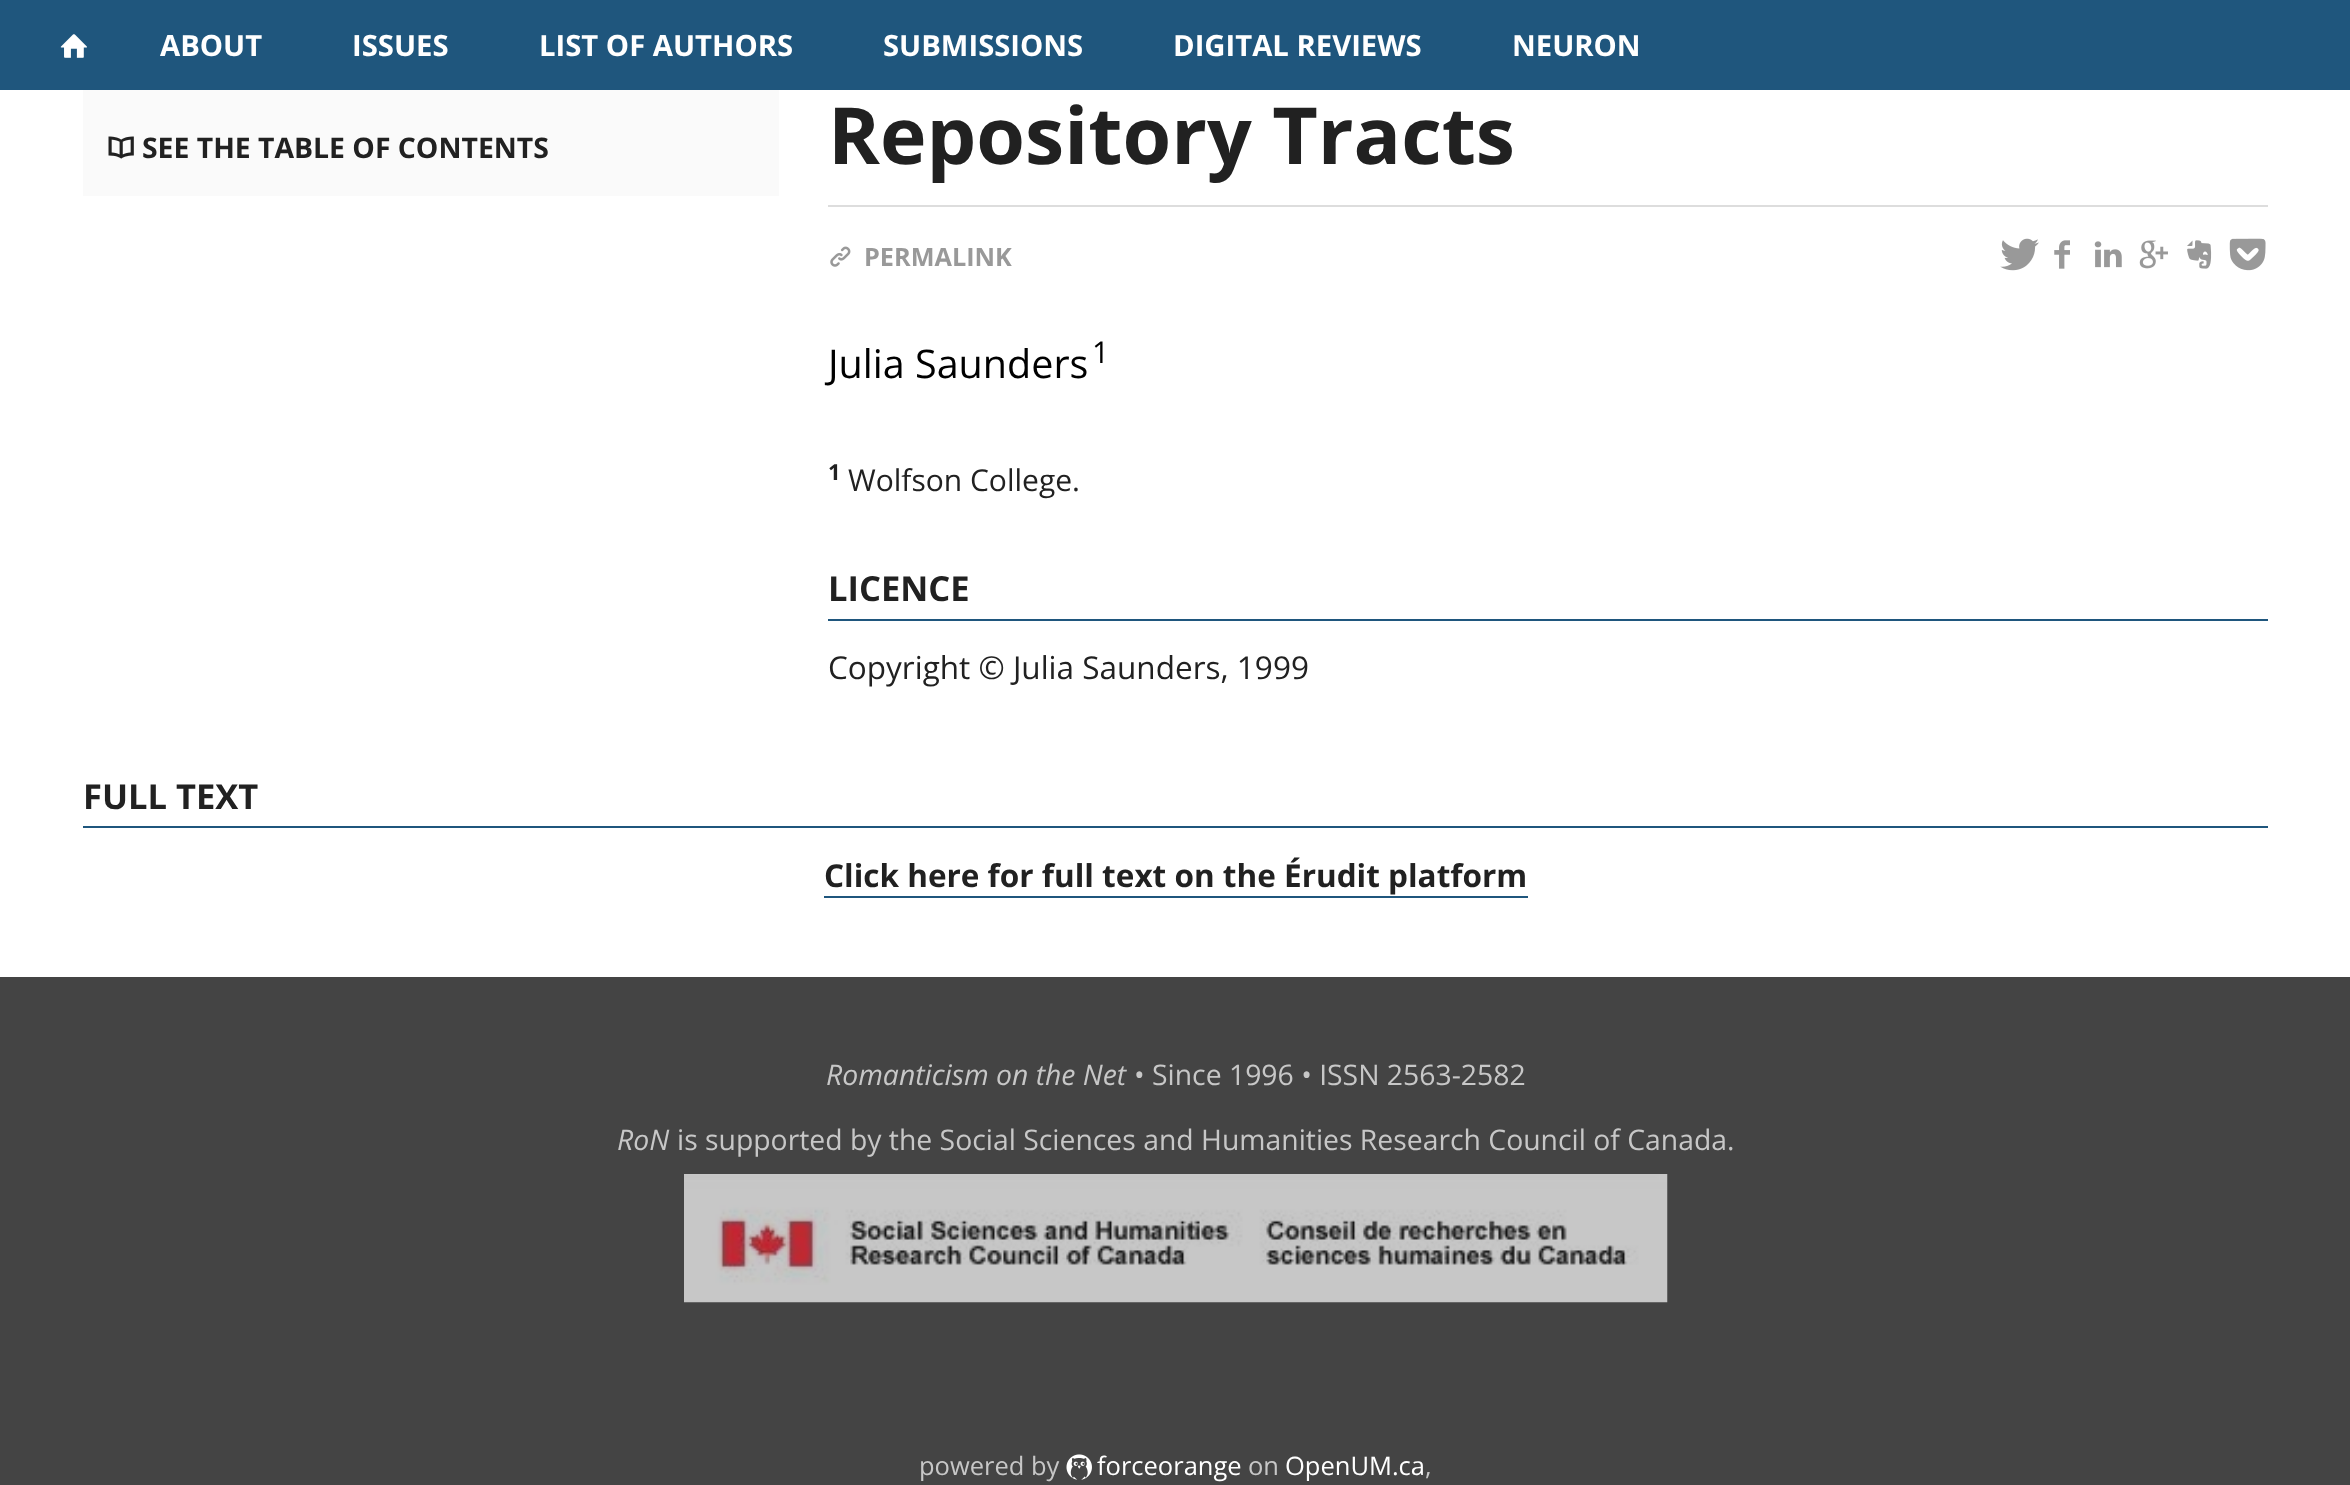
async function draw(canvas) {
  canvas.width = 2350
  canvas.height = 1485
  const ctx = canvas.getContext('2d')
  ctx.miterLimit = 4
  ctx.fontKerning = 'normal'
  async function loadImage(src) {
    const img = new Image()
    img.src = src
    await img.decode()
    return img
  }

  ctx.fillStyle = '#fff'
  ctx.fillRect(0, 0, 2350, 1485)
  ctx.fillStyle = '#1f567d'
  ctx.fillRect(0, 0, 2350, 90)
  ctx.drawImage(await loadImage('image0.png'), 60, 34, 27, 24)
  ctx.font = 'bold 29.25px Open Sans'
  ctx.fillStyle = '#fff'
  ctx.fillText('ABOUT', 160, 56)
  ctx.fillText('ISSUES', 352, 56)
  ctx.fillText('LIST OF AUTHORS', 539, 56)
  ctx.fillText('SUBMISSIONS', 883, 56)
  ctx.fillText('DIGITAL REVIEWS', 1173, 56)
  ctx.fillText('NEURON', 1512, 56)
  ctx.fillStyle = '#fafafa'
  ctx.fillRect(83, 90, 696, 106)
  ctx.drawImage(await loadImage('image1.png'), 108, 136, 26, 23)
  ctx.font = 'bold 28.35px Open Sans'
  ctx.fillStyle = '#212121'
  ctx.fillText('SEE THE TABLE OF CONTENTS', 142, 158)
  ctx.font = 'bold 78.75px Open Sans'
  ctx.fillText('Repository Tracts', 828, 164)
  ctx.fillStyle = '#ddd'
  ctx.fillRect(828, 205, 1440, 2)
  ctx.drawImage(await loadImage('image2.png'), 830, 246, 21, 21)
  ctx.font = 'bold 25.25px Open Sans'
  ctx.fillStyle = '#999'
  ctx.fillText('PERMALINK', 864, 266)
  ctx.drawImage(await loadImage('image3.png'), 2000, 238, 39, 33)
  ctx.drawImage(await loadImage('image4.png'), 2054, 240, 16, 29)
  ctx.drawImage(await loadImage('image5.png'), 2094, 241, 28, 27)
  ctx.drawImage(await loadImage('image6.png'), 2139, 240, 29, 29)
  ctx.drawImage(await loadImage('image7.png'), 2187, 240, 25, 29)
  ctx.drawImage(await loadImage('image8.png'), 2229, 238, 37, 33)
  ctx.font = '39.5px Open Sans'
  ctx.fillStyle = '#000'
  ctx.fillText('Julia Saunders', 828, 378)
  ctx.font = '30px Open Sans'
  ctx.fillText('1', 1092, 363)
  ctx.font = 'bold 22px Open Sans'
  ctx.fillStyle = '#212121'
  ctx.fillText('1', 828, 480)
  ctx.font = '30px Open Sans'
  ctx.fillText('Wolfson College.', 848, 491)
  ctx.fillStyle = '#1f567d'
  ctx.fillRect(828, 619, 1440, 2)
  ctx.font = 'bold 34.5px Open Sans'
  ctx.fillStyle = '#212121'
  ctx.fillText('LICENCE', 828, 601)
  ctx.font = '31.5px Open Sans'
  ctx.fillText('Copyright © Julia Saunders, 1999', 828, 679)
  ctx.fillStyle = '#1f567d'
  ctx.fillRect(83, 826, 2185, 2)
  ctx.font = 'bold 34.5px Open Sans'
  ctx.fillStyle = '#212121'
  ctx.fillText('FULL TEXT', 83, 809)
  ctx.font = 'bold 31.5px Open Sans'
  ctx.fillText('Click here for full text on the Érudit platform', 824, 887)
  ctx.fillStyle = '#1f567d'
  ctx.fillRect(824, 896, 704, 2)
  ctx.fillStyle = '#444'
  ctx.fillRect(0, 977, 2350, 508)
  ctx.font = 'italic 28.35px Open Sans'
  ctx.fillStyle = '#c7c7c7'
  ctx.fillText('Romanticism on the Net', 826, 1085)
  ctx.font = '28.35px Open Sans'
  ctx.fillText('• Since 1996 • ISSN 2563-2582', 1134, 1085)
  ctx.font = 'italic 28.35px Open Sans'
  ctx.fillText('RoN', 617, 1150)
  ctx.font = '28.35px Open Sans'
  ctx.fillText('is supported by the Social Sciences and Humanities Research Council of Canada.', 677, 1150)
  ctx.drawImage(await loadImage('image9.png'), 684, 1174, 984, 129)
  ctx.font = '25.5px Open Sans'
  ctx.fillText('powered by', 919, 1475)
  ctx.drawImage(await loadImage('image10.png'), 1066, 1454, 26, 26)
  ctx.fillStyle = '#fff'
  ctx.fillText('forceorange', 1097, 1475)
  ctx.fillStyle = '#c7c7c7'
  ctx.fillText('on', 1248, 1475)
  ctx.fillStyle = '#fff'
  ctx.fillText('OpenUM.ca', 1285, 1475)
  ctx.fillStyle = '#c7c7c7'
  ctx.fillText(',', 1425, 1475)
}

draw(document.querySelector('canvas'))
